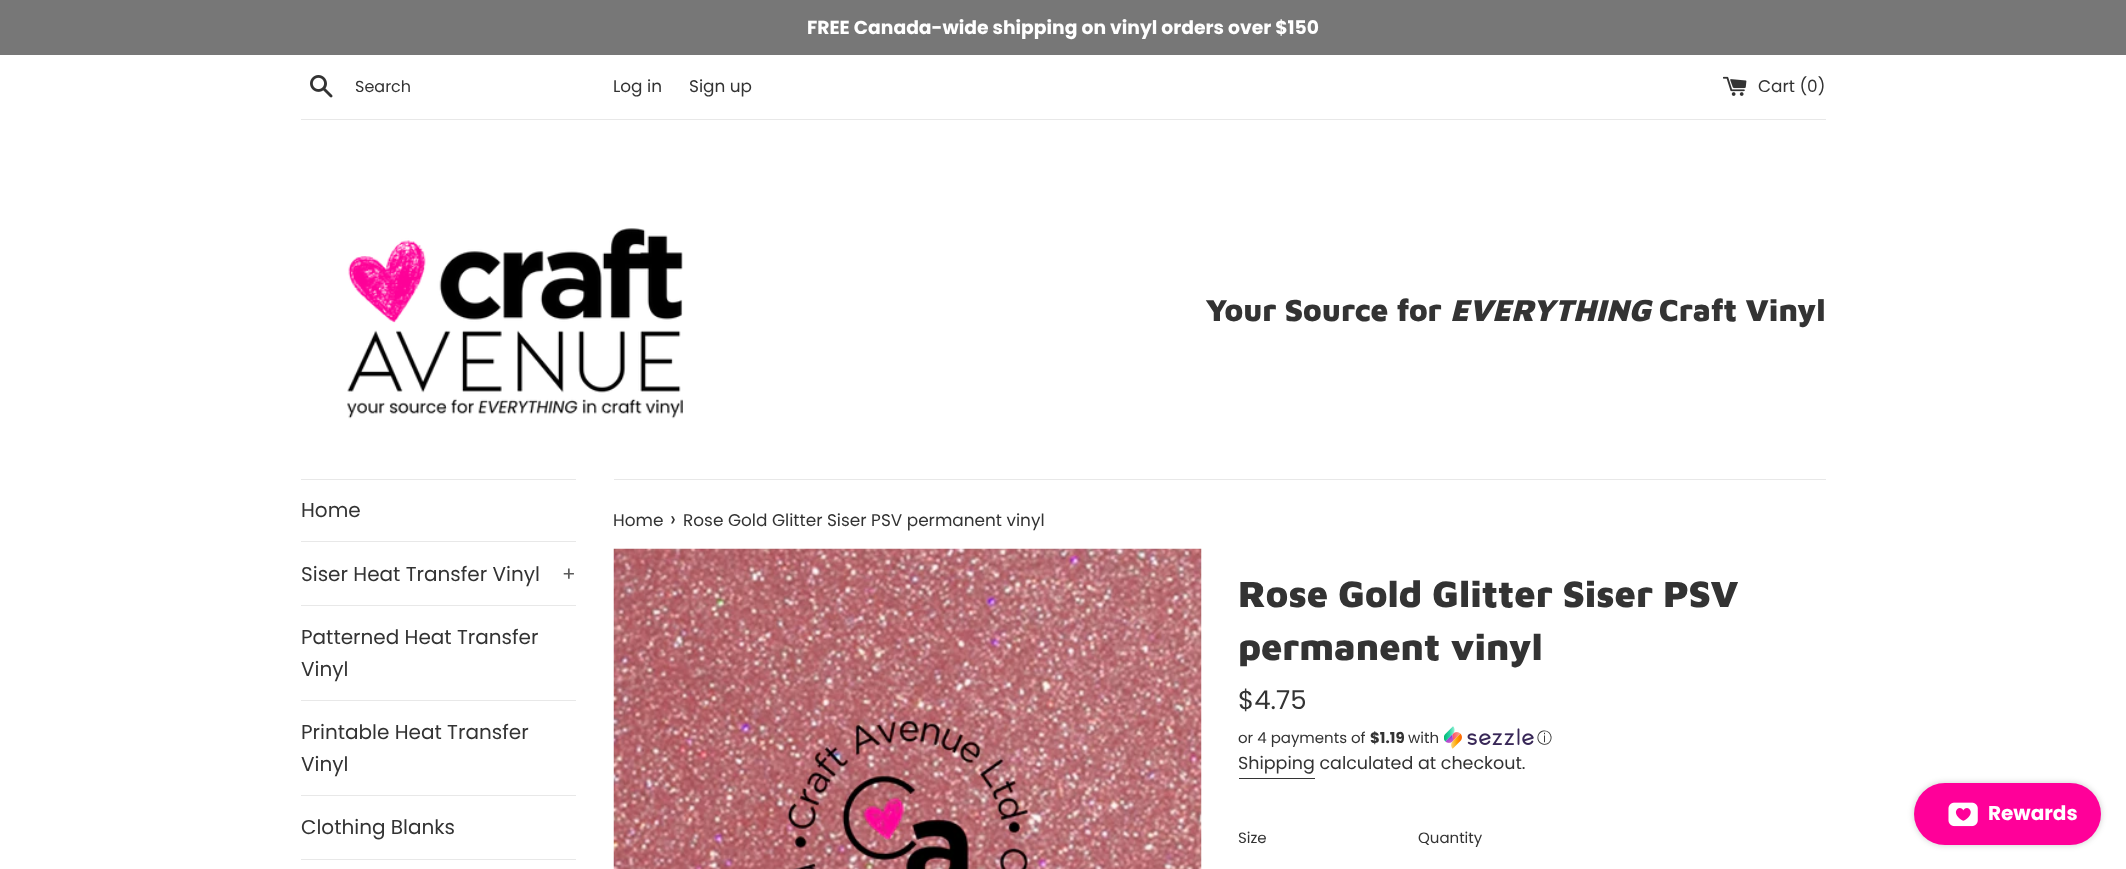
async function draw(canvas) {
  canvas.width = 2126
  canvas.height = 869
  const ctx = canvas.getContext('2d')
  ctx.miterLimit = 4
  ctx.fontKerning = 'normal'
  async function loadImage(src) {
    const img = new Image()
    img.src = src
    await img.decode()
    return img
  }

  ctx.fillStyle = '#fff'
  ctx.fillRect(0, 0, 2126, 869)
  ctx.fillStyle = '#777'
  ctx.fillRect(0, 0, 2126, 55)
  ctx.font = 'bold 18.75px Poppins'
  ctx.fillStyle = '#fff'
  ctx.fillText('FREE Canada-wide shipping on vinyl orders over $150', 807, 34)
  ctx.drawImage(await loadImage('image0.png'), 310, 75, 23, 23)
  ctx.font = '16px Poppins'
  ctx.fillStyle = '#333'
  ctx.fillText('Search', 355, 92)
  ctx.font = '16.9px Poppins'
  ctx.fillText('Log in', 613, 92)
  ctx.fillText('Sign up', 689, 92)
  ctx.drawImage(await loadImage('image1.png'), 1723, 76, 24, 20)
  ctx.fillText('Cart (0)', 1758, 92)
  ctx.fillStyle = '#e8e8e8'
  ctx.fillRect(301, 119, 1525, 1)
  ctx.drawImage(await loadImage('image2.png'), 347, 228, 336, 191)
  ctx.font = '900 31.25px Maven Pro'
  ctx.fillStyle = '#333'
  ctx.fillText('Your Source for', 1205, 321)
  ctx.font = 'italic 900 31.25px Maven Pro'
  ctx.fillText('EVERYTHING', 1450, 321)
  ctx.font = '900 31.25px Maven Pro'
  ctx.fillText('Craft Vinyl', 1659, 321)
  ctx.fillStyle = '#e8e8e8'
  ctx.fillRect(301, 479, 275, 1)
  ctx.fillRect(301, 541, 275, 1)
  ctx.font = '20px Poppins'
  ctx.fillStyle = '#333'
  ctx.fillText('Home', 301, 517)
  ctx.fillStyle = '#e8e8e8'
  ctx.fillRect(301, 605, 275, 1)
  ctx.fillStyle = '#333'
  ctx.fillText('Siser Heat Transfer Vinyl', 301, 581)
  ctx.fillStyle = '#5c5c5c'
  ctx.fillText('+', 562, 581)
  ctx.fillStyle = '#e8e8e8'
  ctx.fillRect(301, 700, 275, 1)
  ctx.fillStyle = '#333'
  ctx.fillText('Patterned Heat Transfer', 301, 644)
  ctx.fillText('Vinyl', 301, 676)
  ctx.fillStyle = '#e8e8e8'
  ctx.fillRect(301, 795, 275, 1)
  ctx.fillStyle = '#333'
  ctx.fillText('Printable Heat Transfer', 301, 739)
  ctx.fillText('Vinyl', 301, 771)
  ctx.fillStyle = '#e8e8e8'
  ctx.fillRect(301, 859, 275, 1)
  ctx.fillStyle = '#333'
  ctx.fillText('Clothing Blanks', 301, 834)
  ctx.fillStyle = '#e8e8e8'
  ctx.fillRect(614, 479, 1212, 1)
  ctx.font = '16.9px Poppins'
  ctx.fillStyle = '#333'
  ctx.fillText('Home', 613, 526)
  ctx.font = '21px Poppins'
  ctx.fillText('›', 670, 526)
  ctx.font = '16.9px Poppins'
  ctx.fillText('Rose Gold Glitter Siser PSV permanent vinyl', 683, 526)
  ctx.drawImage(await loadImage('image3.png'), 613, 548, 589, 321)
  ctx.font = '900 37.5px Maven Pro'
  ctx.fillText('Rose Gold Glitter Siser PSV', 1238, 607)
  ctx.fillText('permanent vinyl', 1238, 660)
  ctx.font = '26px Poppins'
  ctx.fillText('$4.75', 1238, 709)
  ctx.font = '15px Poppins'
  ctx.fillText('or 4 payments of', 1238, 743)
  ctx.font = 'bold 15px Poppins'
  ctx.fillText('$1.19', 1370, 743)
  ctx.font = '15px Poppins'
  ctx.fillText('with', 1408, 743)
  ctx.drawImage(await loadImage('image4.png'), 1444, 726, 90, 23)
  ctx.font = '500 15px WenQuanYi Zen Hei'
  ctx.fillText('ⓘ', 1537, 743)
  ctx.font = '17.5px Poppins'
  ctx.fillText('Shipping calculated at checkout.', 1238, 769)
  ctx.fillRect(1239, 778, 76, 1)
  ctx.font = '15px Poppins'
  ctx.fillText('Size', 1238, 843)
  ctx.fillText('Quantity', 1418, 843)
  ctx.fillStyle = '#00000033'
  ctx.filter = 'blur(3px)'
  ctx.beginPath()
  ctx.roundRect(1914, 783, 187, 62, 31)
  ctx.fill()
  ctx.filter = 'none'
  ctx.fillStyle = '#f09'
  ctx.beginPath()
  ctx.roundRect(1914, 783, 187, 62, 31)
  ctx.fill()
  ctx.drawImage(await loadImage('image5.png'), 1948, 802, 30, 25)
  ctx.font = 'bold 20px Poppins'
  ctx.fillStyle = '#fff'
  ctx.fillText('Rewards', 1988, 820)
}

draw(document.querySelector('canvas'))
